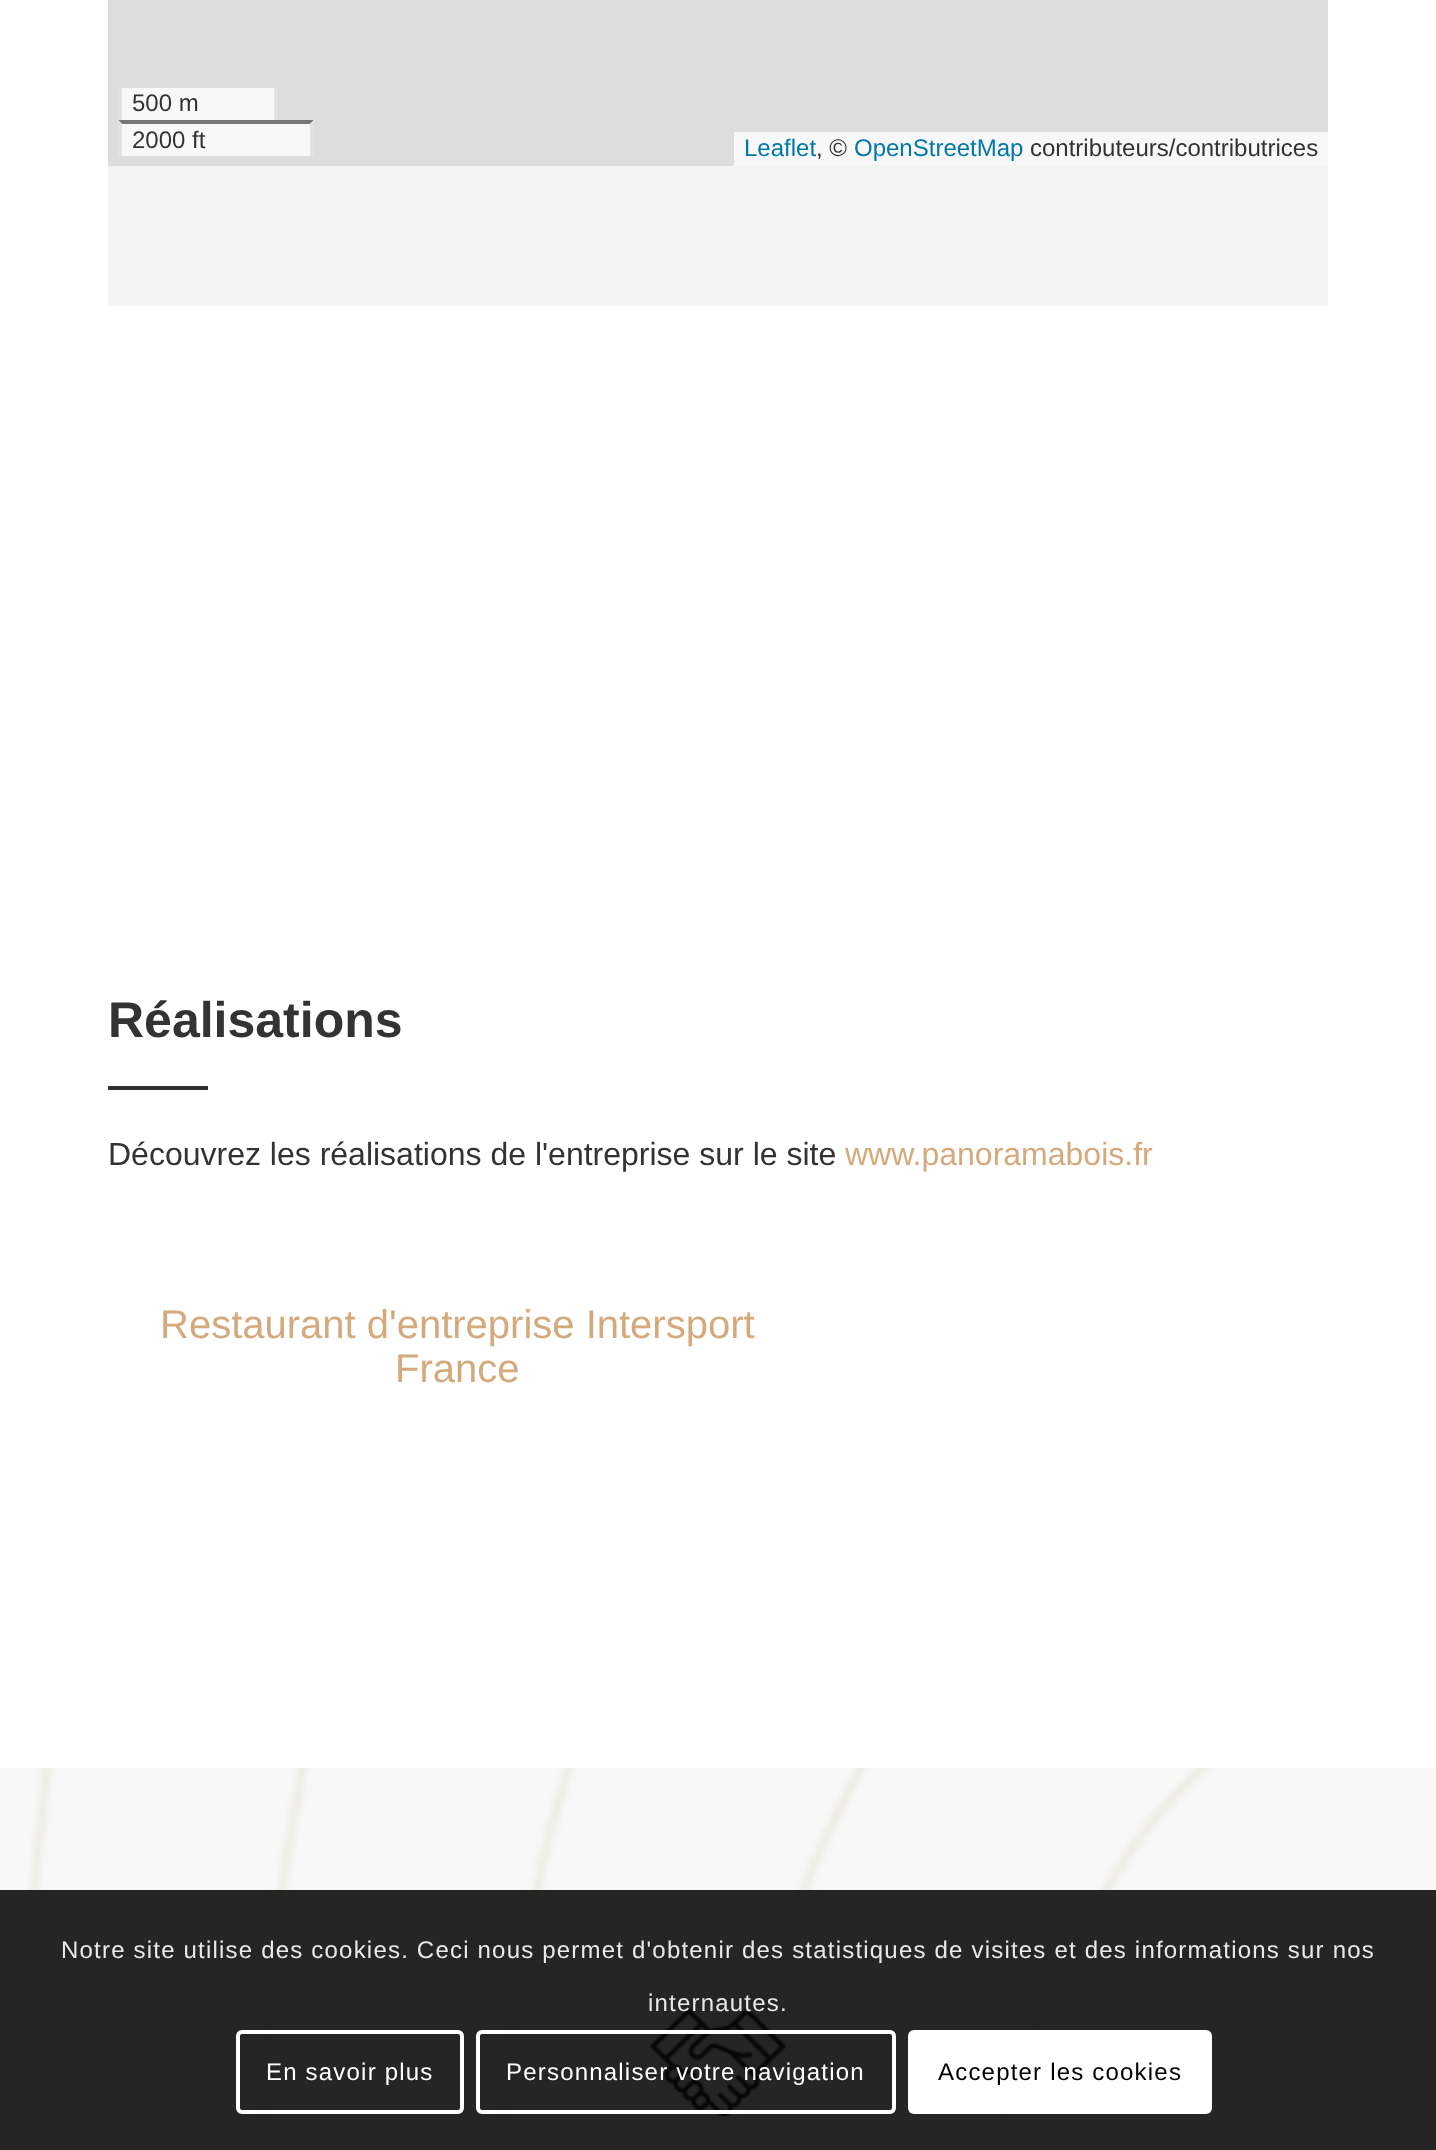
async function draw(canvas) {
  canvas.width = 1436
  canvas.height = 2150
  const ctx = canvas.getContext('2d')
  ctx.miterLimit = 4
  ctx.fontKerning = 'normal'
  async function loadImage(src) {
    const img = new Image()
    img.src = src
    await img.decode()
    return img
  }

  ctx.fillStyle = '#fff'
  ctx.fillRect(0, 0, 1436, 2150)
  ctx.fillStyle = '#f4f4f4'
  ctx.fillRect(108, 166, 1220, 140)
  ctx.fillStyle = '#ddd'
  ctx.fillRect(108, 0, 1220, 166)
  ctx.fillStyle = '#f8f8f8'
  ctx.fillRect(122, 120, 192, 36)
  ctx.fillRect(122, 88, 152, 32)
  ctx.fillStyle = '#e1e1e1'
  ctx.fillRect(274, 88, 4, 36)
  ctx.fillRect(118, 88, 4, 36)
  ctx.font = '24px Liberation Sans'
  ctx.fillStyle = '#333'
  ctx.fillText('500 m', 132, 111)
  ctx.fillStyle = '#777'
  ctx.beginPath()
  ctx.moveTo(118, 120)
  ctx.lineTo(314, 120)
  ctx.lineTo(310, 124)
  ctx.lineTo(122, 124)
  ctx.closePath()
  ctx.fill()
  ctx.fillStyle = '#e1e1e1'
  ctx.beginPath()
  ctx.moveTo(314, 120)
  ctx.lineTo(314, 156)
  ctx.lineTo(310, 156)
  ctx.lineTo(310, 124)
  ctx.closePath()
  ctx.fill()
  ctx.beginPath()
  ctx.moveTo(118, 156)
  ctx.lineTo(118, 120)
  ctx.lineTo(122, 124)
  ctx.lineTo(122, 156)
  ctx.closePath()
  ctx.fill()
  ctx.fillStyle = '#333'
  ctx.fillText('2000 ft', 132, 148)
  ctx.fillStyle = '#f8f8f8'
  ctx.fillRect(734, 132, 594, 34)
  ctx.fillStyle = '#0078a8'
  ctx.fillText('Leaflet', 744, 156)
  ctx.fillStyle = '#333'
  ctx.fillText(', ©', 816, 156)
  ctx.fillStyle = '#0078a8'
  ctx.fillText('OpenStreetMap', 854, 156)
  ctx.fillStyle = '#333'
  ctx.fillText('contributeurs/contributrices', 1030, 156)
  ctx.font = 'bold 50px Liberation Sans'
  ctx.fillText('Réalisations', 108, 1037)
  ctx.fillStyle = '#313130'
  ctx.fillRect(108, 1086, 100, 4)
  ctx.font = '32px Liberation Sans'
  ctx.fillStyle = '#333'
  ctx.fillText('Découvrez les réalisations de l\'entreprise sur le site', 108, 1165)
  ctx.fillStyle = '#d4aa7d'
  ctx.fillText('www.panoramabois.fr', 845, 1165)
  ctx.font = '40px Liberation Sans'
  ctx.fillText('Restaurant d\'entreprise Intersport', 160, 1338)
  ctx.fillText('France', 395, 1382)
  ctx.drawImage(await loadImage('image0.png'), 0, 1768, 1436, 382)
  ctx.drawImage(await loadImage('image1.png'), 650, 2008, 136, 108)
  ctx.fillStyle = '#000000d9'
  ctx.fillRect(0, 1890, 1436, 260)
  ctx.letterSpacing = '1.2px'
  ctx.font = '24px Liberation Sans'
  ctx.fillStyle = '#e9e9e9'
  ctx.fillText('Notre site utilise des cookies. Ceci nous permet d\'obtenir des statistiques de visites et des informations sur nos', 61, 1958)
  ctx.fillText('internautes.', 648, 2011)
  ctx.beginPath()
  ctx.roundRect(238, 2032, 224, 80, 4)
  ctx.strokeStyle = '#fff'
  ctx.lineWidth = 4
  ctx.stroke()
  ctx.fillStyle = '#fff'
  ctx.fillText('En savoir plus', 266, 2080)
  ctx.beginPath()
  ctx.roundRect(478, 2032, 416, 80, 4)
  ctx.stroke()
  ctx.fillText('Personnaliser votre navigation', 506, 2080)
  ctx.beginPath()
  ctx.roundRect(908, 2030, 304, 84, 6)
  ctx.fill()
  ctx.fillStyle = '#000'
  ctx.fillText('Accepter les cookies', 938, 2080)
}

draw(document.querySelector('canvas'))
